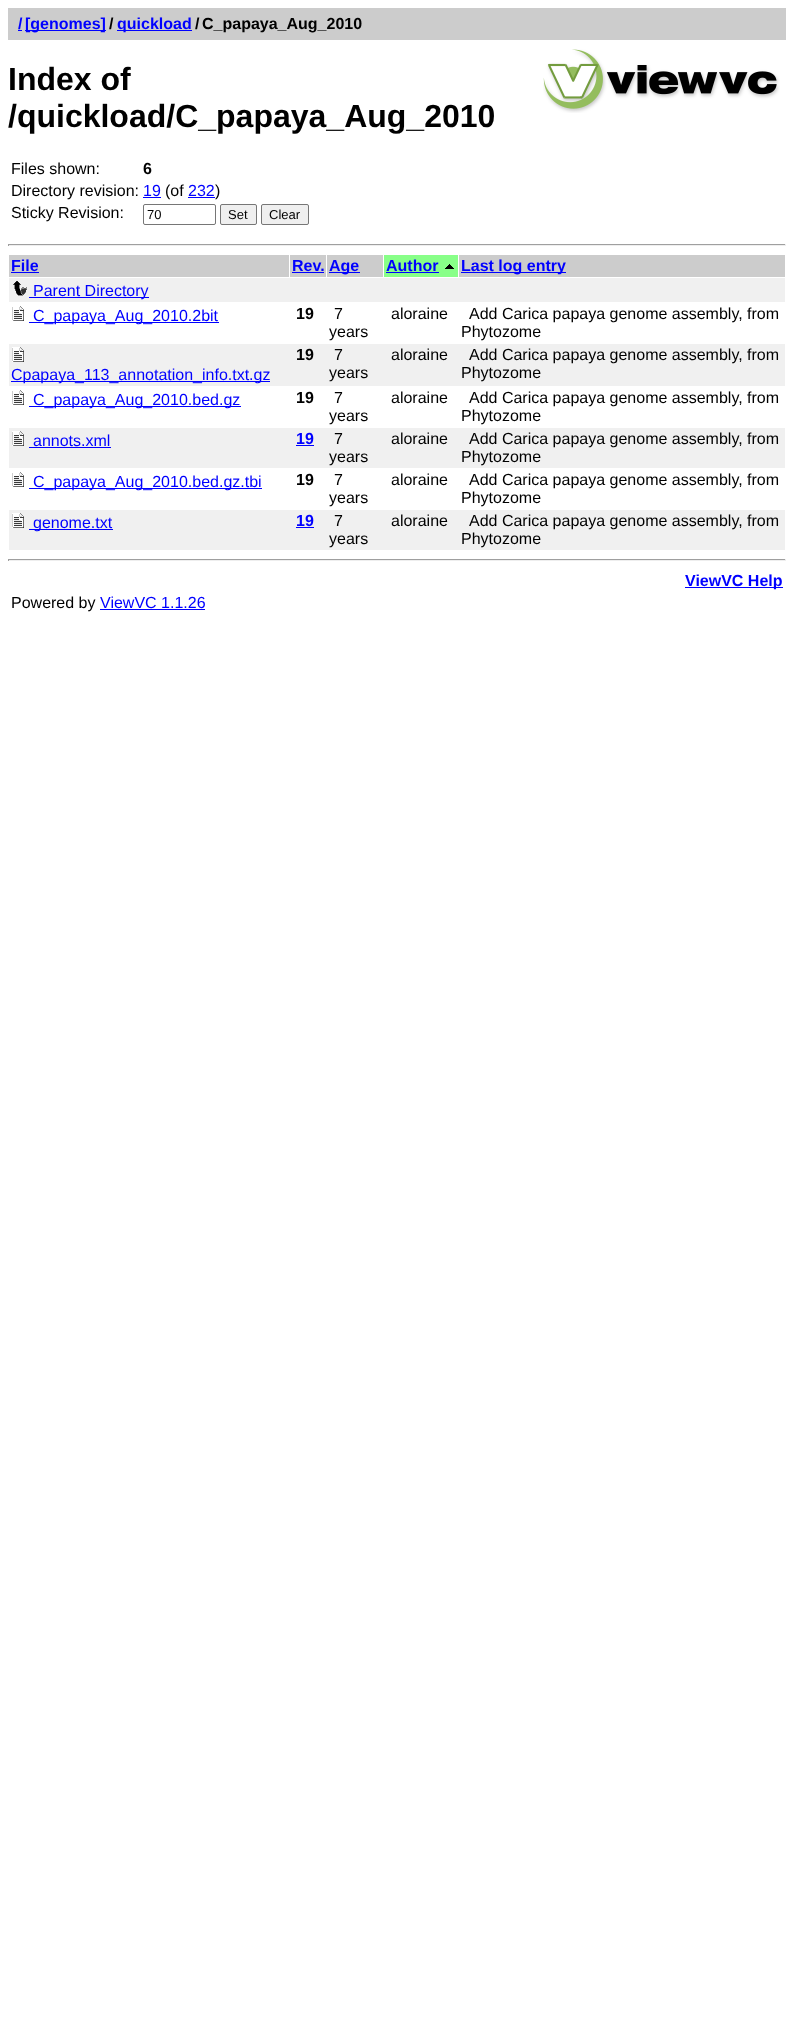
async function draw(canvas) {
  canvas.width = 794
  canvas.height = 2026
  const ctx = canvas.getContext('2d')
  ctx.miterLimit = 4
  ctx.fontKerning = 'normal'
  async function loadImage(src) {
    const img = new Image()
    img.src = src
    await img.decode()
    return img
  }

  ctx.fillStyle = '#fff'
  ctx.fillRect(0, 0, 794, 2026)
  ctx.fillStyle = '#ccc'
  ctx.fillRect(8, 8, 778, 32)
  ctx.font = 'bold 16px Liberation Sans'
  ctx.fillStyle = '#00f'
  ctx.fillText('/', 18, 29)
  ctx.fillRect(18, 30, 4, 1)
  ctx.fillRect(25, 30, 81, 1)
  ctx.fillText('[genomes]', 25, 29)
  ctx.fillStyle = '#000'
  ctx.fillText('/', 109, 29)
  ctx.fillStyle = '#00f'
  ctx.fillRect(117, 30, 75, 1)
  ctx.fillText('quickload', 117, 29)
  ctx.fillStyle = '#000'
  ctx.fillText('/', 195, 29)
  ctx.fillText('C_papaya_Aug_2010', 202, 29)
  ctx.font = 'bold 32px Liberation Sans'
  ctx.fillText('Index of', 8, 90)
  ctx.fillText('/quickload/C_papaya_Aug_2010', 8, 127)
  ctx.drawImage(await loadImage('image0.png'), 543, 49, 237, 64)
  ctx.font = '16px Liberation Sans'
  ctx.fillText('Files shown:', 11, 174)
  ctx.font = 'bold 16px Liberation Sans'
  ctx.fillText('6', 143, 174)
  ctx.font = '16px Liberation Sans'
  ctx.fillText('Directory revision:', 11, 196)
  ctx.fillStyle = '#00f'
  ctx.fillText('19', 143, 196)
  ctx.fillRect(143, 197, 18, 1)
  ctx.fillStyle = '#000'
  ctx.fillText('(of', 165, 196)
  ctx.fillStyle = '#00f'
  ctx.fillText('232', 188, 196)
  ctx.fillRect(188, 197, 27, 1)
  ctx.fillStyle = '#000'
  ctx.fillText(')', 215, 196)
  ctx.fillText('Sticky Revision:', 11, 218)
  ctx.beginPath()
  ctx.roundRect(143.5, 204.5, 72, 20, 1.5)
  ctx.strokeStyle = '#767676'
  ctx.stroke()
  ctx.font = '13px Liberation Sans'
  ctx.fillText('70', 147, 219)
  ctx.fillStyle = '#efefef'
  ctx.beginPath()
  ctx.roundRect(220.5, 204.5, 36, 20, 1.5)
  ctx.fill()
  ctx.stroke()
  ctx.fillStyle = '#000'
  ctx.fillText('Set', 228, 219)
  ctx.fillStyle = '#efefef'
  ctx.beginPath()
  ctx.roundRect(261.5, 204.5, 47, 20, 1.5)
  ctx.fill()
  ctx.stroke()
  ctx.fillStyle = '#000'
  ctx.fillText('Clear', 269, 219)
  ctx.fillStyle = '#9f9f9f'
  ctx.fillRect(8, 244, 778, 1)
  ctx.fillStyle = '#eee'
  ctx.fillRect(785, 244, 1, 2)
  ctx.fillRect(8, 245, 778, 1)
  ctx.fillStyle = '#9f9f9f'
  ctx.fillRect(8, 244, 1, 2)
  ctx.fillStyle = '#ccc'
  ctx.fillRect(9, 255, 280, 22)
  ctx.font = 'bold 16px Liberation Sans'
  ctx.fillStyle = '#00f'
  ctx.fillText('File', 11, 271)
  ctx.fillRect(11, 272, 28, 1)
  ctx.fillStyle = '#ccc'
  ctx.fillRect(290, 255, 36, 22)
  ctx.fillStyle = '#00f'
  ctx.fillText('Rev.', 292, 271)
  ctx.fillRect(292, 272, 32, 1)
  ctx.fillStyle = '#ccc'
  ctx.fillRect(327, 255, 56, 22)
  ctx.fillStyle = '#00f'
  ctx.fillRect(329, 272, 31, 1)
  ctx.fillText('Age', 329, 271)
  ctx.fillStyle = '#8f8'
  ctx.fillRect(384, 255, 74, 22)
  ctx.fillStyle = '#00f'
  ctx.fillText('Author', 386, 271)
  ctx.fillRect(386, 272, 53, 1)
  ctx.drawImage(await loadImage('image1.png'), 445, 264, 9, 5)
  ctx.fillStyle = '#ccc'
  ctx.fillRect(459, 255, 326, 22)
  ctx.fillStyle = '#00f'
  ctx.fillRect(461, 272, 105, 1)
  ctx.fillText('Last log entry', 461, 271)
  ctx.fillStyle = '#f0f0f0'
  ctx.fillRect(9, 278, 776, 24)
  ctx.drawImage(await loadImage('image2.png'), 13, 281, 14, 15)
  ctx.fillStyle = '#00f'
  ctx.fillRect(29, 297, 120, 1)
  ctx.font = '16px Liberation Sans'
  ctx.fillText('Parent Directory', 33, 296)
  ctx.drawImage(await loadImage('image3.png'), 12, 306, 12, 15)
  ctx.fillRect(29, 322, 190, 1)
  ctx.fillText('C_papaya_Aug_2010.2bit', 33, 321)
  ctx.font = 'bold 16px Liberation Sans'
  ctx.fillStyle = '#000'
  ctx.fillText('19', 296, 319)
  ctx.font = '16px Liberation Sans'
  ctx.fillText('7', 334, 319)
  ctx.fillText('years', 329, 337)
  ctx.fillText('aloraine', 391, 319)
  ctx.fillText('Add Carica papaya genome assembly, from', 469, 319)
  ctx.fillText('Phytozome', 461, 337)
  ctx.fillStyle = '#f0f0f0'
  ctx.fillRect(9, 344, 776, 42)
  ctx.drawImage(await loadImage('image4.png'), 12, 347, 12, 15)
  ctx.fillStyle = '#00f'
  ctx.fillRect(11, 381, 259, 1)
  ctx.fillText('Cpapaya_113_annotation_info.txt.gz', 11, 380)
  ctx.font = 'bold 16px Liberation Sans'
  ctx.fillStyle = '#000'
  ctx.fillText('19', 296, 360)
  ctx.font = '16px Liberation Sans'
  ctx.fillText('7', 334, 360)
  ctx.fillText('years', 329, 378)
  ctx.fillText('aloraine', 391, 360)
  ctx.fillText('Add Carica papaya genome assembly, from', 469, 360)
  ctx.fillText('Phytozome', 461, 378)
  ctx.drawImage(await loadImage('image3.png'), 12, 390, 12, 15)
  ctx.fillStyle = '#00f'
  ctx.fillRect(29, 406, 212, 1)
  ctx.fillText('C_papaya_Aug_2010.bed.gz', 33, 405)
  ctx.font = 'bold 16px Liberation Sans'
  ctx.fillStyle = '#000'
  ctx.fillText('19', 296, 403)
  ctx.font = '16px Liberation Sans'
  ctx.fillText('7', 334, 403)
  ctx.fillText('years', 329, 421)
  ctx.fillText('aloraine', 391, 403)
  ctx.fillText('Add Carica papaya genome assembly, from', 469, 403)
  ctx.fillText('Phytozome', 461, 421)
  ctx.fillStyle = '#f0f0f0'
  ctx.fillRect(9, 428, 776, 40)
  ctx.drawImage(await loadImage('image4.png'), 12, 431, 12, 15)
  ctx.fillStyle = '#00f'
  ctx.fillText('annots.xml', 33, 446)
  ctx.fillRect(29, 447, 82, 1)
  ctx.font = 'bold 16px Liberation Sans'
  ctx.fillText('19', 296, 444)
  ctx.fillRect(296, 445, 18, 1)
  ctx.font = '16px Liberation Sans'
  ctx.fillStyle = '#000'
  ctx.fillText('7', 334, 444)
  ctx.fillText('years', 329, 462)
  ctx.fillText('aloraine', 391, 444)
  ctx.fillText('Add Carica papaya genome assembly, from', 469, 444)
  ctx.fillText('Phytozome', 461, 462)
  ctx.drawImage(await loadImage('image3.png'), 12, 472, 12, 15)
  ctx.fillStyle = '#00f'
  ctx.fillRect(29, 488, 233, 1)
  ctx.fillText('C_papaya_Aug_2010.bed.gz.tbi', 33, 487)
  ctx.font = 'bold 16px Liberation Sans'
  ctx.fillStyle = '#000'
  ctx.fillText('19', 296, 485)
  ctx.font = '16px Liberation Sans'
  ctx.fillText('7', 334, 485)
  ctx.fillText('years', 329, 503)
  ctx.fillText('aloraine', 391, 485)
  ctx.fillText('Add Carica papaya genome assembly, from', 469, 485)
  ctx.fillText('Phytozome', 461, 503)
  ctx.fillStyle = '#f0f0f0'
  ctx.fillRect(9, 510, 776, 40)
  ctx.drawImage(await loadImage('image4.png'), 12, 513, 12, 15)
  ctx.fillStyle = '#00f'
  ctx.fillRect(29, 529, 84, 1)
  ctx.fillText('genome.txt', 33, 528)
  ctx.font = 'bold 16px Liberation Sans'
  ctx.fillText('19', 296, 526)
  ctx.fillRect(296, 527, 18, 1)
  ctx.font = '16px Liberation Sans'
  ctx.fillStyle = '#000'
  ctx.fillText('7', 334, 526)
  ctx.fillText('years', 329, 544)
  ctx.fillText('aloraine', 391, 526)
  ctx.fillText('Add Carica papaya genome assembly, from', 469, 526)
  ctx.fillText('Phytozome', 461, 544)
  ctx.fillStyle = '#9f9f9f'
  ctx.fillRect(8, 559, 778, 1)
  ctx.fillStyle = '#eee'
  ctx.fillRect(785, 559, 1, 2)
  ctx.fillRect(8, 560, 778, 1)
  ctx.fillStyle = '#9f9f9f'
  ctx.fillRect(8, 559, 1, 2)
  ctx.fillStyle = '#00f'
  ctx.fillRect(685, 587, 98, 1)
  ctx.font = 'bold 16px Liberation Sans'
  ctx.fillText('ViewVC Help', 685, 586)
  ctx.font = '16px Liberation Sans'
  ctx.fillStyle = '#000'
  ctx.fillText('Powered by', 11, 608)
  ctx.fillStyle = '#00f'
  ctx.fillText('ViewVC 1.1.26', 100, 608)
  ctx.fillRect(100, 609, 105, 1)
}

draw(document.querySelector('canvas'))
